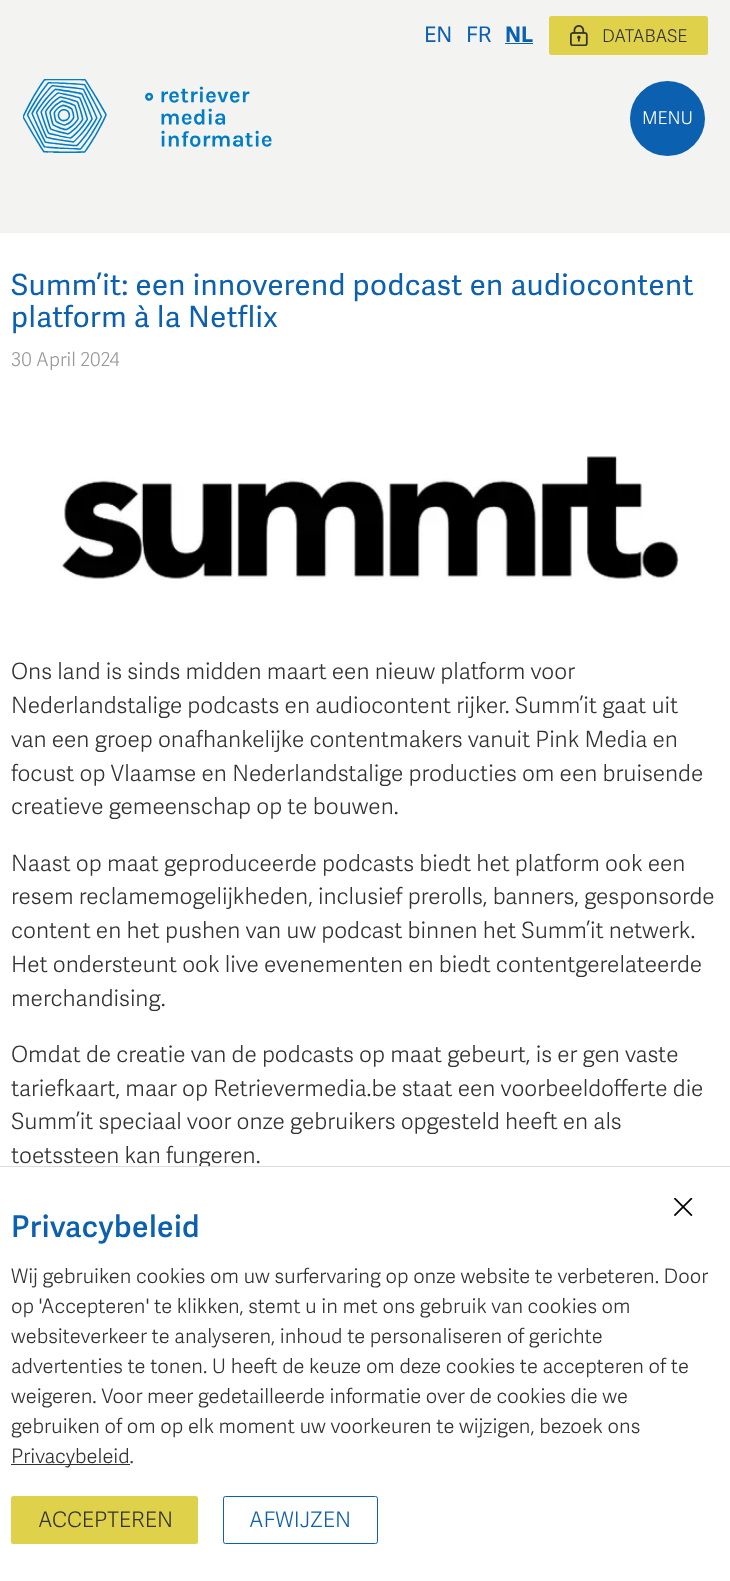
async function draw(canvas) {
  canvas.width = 730
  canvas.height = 1581
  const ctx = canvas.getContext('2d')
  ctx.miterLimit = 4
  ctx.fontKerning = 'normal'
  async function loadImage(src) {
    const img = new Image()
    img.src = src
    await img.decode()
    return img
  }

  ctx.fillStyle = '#fff'
  ctx.fillRect(0, 0, 730, 1581)
  ctx.fillStyle = '#f3f3f1'
  ctx.fillRect(0, 0, 730, 233)
  ctx.font = '21.5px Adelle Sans'
  ctx.fillStyle = '#0b60af'
  ctx.fillText('EN', 424, 42)
  ctx.fillText('FR', 466, 42)
  ctx.font = 'bold 21.5px Adelle Sans'
  ctx.fillText('NL', 505, 42)
  ctx.fillRect(505, 43, 28, 1)
  ctx.fillStyle = '#e0d14b'
  ctx.beginPath()
  ctx.roundRect(549, 16, 159, 39, 2.5)
  ctx.fill()
  ctx.drawImage(await loadImage('image0.png'), 570, 25, 18, 21)
  ctx.font = '300 17.5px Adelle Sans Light'
  ctx.fillStyle = '#333'
  ctx.fillText('DATABASE', 602, 42)
  ctx.drawImage(await loadImage('image1.png'), 23, 79, 249, 74)
  ctx.fillStyle = '#0b60af'
  ctx.beginPath()
  ctx.arc(667.5, 118.5, 37.5, 0, 2 * Math.PI)
  ctx.fill()
  ctx.fillStyle = '#fff'
  ctx.fillText('MENU', 642, 124)
  ctx.letterSpacing = '0.45px'
  ctx.font = '29.25px Adelle Sans'
  ctx.fillStyle = '#0b60af'
  ctx.fillText('Summ’it: een innoverend podcast en audiocontent', 11, 295)
  ctx.fillText('platform à la Netflix', 11, 327)
  ctx.letterSpacing = '0px'
  ctx.font = '300 19px Adelle Sans Light'
  ctx.fillStyle = '#999'
  ctx.fillText('30 April 2024', 11, 366)
  ctx.drawImage(await loadImage('image2.png'), 60, 456, 619, 124)
  ctx.font = '300 22.5px Adelle Sans Light'
  ctx.fillStyle = '#333'
  ctx.fillText('Ons land is sinds midden maart een nieuw platform voor', 11, 679)
  ctx.fillText('Nederlandstalige podcasts en audiocontent rijker. Summ’it gaat uit', 11, 713)
  ctx.fillText('van een groep onafhankelijke contentmakers vanuit Pink Media en', 11, 747)
  ctx.fillText('focust op Vlaamse en Nederlandstalige producties om een bruisende', 11, 781)
  ctx.fillText('creatieve gemeenschap op te bouwen.', 11, 814)
  ctx.fillText('Naast op maat geproduceerde podcasts biedt het platform ook een', 11, 871)
  ctx.fillText('resem reclamemogelijkheden, inclusief prerolls, banners, gesponsorde', 11, 904)
  ctx.fillText('content en het pushen van uw podcast binnen het Summ’it netwerk.', 11, 938)
  ctx.fillText('Het ondersteunt ook live evenementen en biedt contentgerelateerde', 11, 972)
  ctx.fillText('merchandising.', 11, 1006)
  ctx.fillText('Omdat de creatie van de podcasts op maat gebeurt, is er gen vaste', 11, 1062)
  ctx.fillText('tariefkaart, maar op Retrievermedia.be staat een voorbeeldofferte die', 11, 1096)
  ctx.fillText('Summ’it speciaal voor onze gebruikers opgesteld heeft en als', 11, 1129)
  ctx.fillText('toetssteen kan fungeren.', 11, 1163)
  ctx.fillStyle = '#fff'
  ctx.fillRect(200, 1167, 9, 2)
  ctx.fillStyle = '#dcdcdc'
  ctx.fillRect(0, 1166, 730, 1)
  ctx.drawImage(await loadImage('image3.png'), 674, 1198, 19, 18)
  ctx.letterSpacing = '0.45px'
  ctx.font = '600 30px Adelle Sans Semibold'
  ctx.fillStyle = '#0b60af'
  ctx.fillText('Privacybeleid', 11, 1237)
  ctx.letterSpacing = '0px'
  ctx.font = '300 20px Adelle Sans Light'
  ctx.fillStyle = '#333'
  ctx.fillText('Wij gebruiken cookies om uw surfervaring op onze website te verbeteren. Door', 11, 1283)
  ctx.fillText('op \'Accepteren\' te klikken, stemt u in met ons gebruik van cookies om', 11, 1313)
  ctx.fillText('websiteverkeer te analyseren, inhoud te personaliseren of gerichte', 11, 1343)
  ctx.fillText('advertenties te tonen. U heeft de keuze om deze cookies te accepteren of te', 11, 1373)
  ctx.fillText('weigeren. Voor meer gedetailleerde informatie over de cookies die we', 11, 1403)
  ctx.fillText('gebruiken of om op elk moment uw voorkeuren te wijzigen, bezoek ons', 11, 1433)
  ctx.fillRect(11, 1464, 119, 1)
  ctx.fillText('Privacybeleid.', 11, 1463)
  ctx.fillStyle = '#e0d14b'
  ctx.beginPath()
  ctx.roundRect(11, 1496, 187, 48, 2.5)
  ctx.fill()
  ctx.font = '300 21.5px Adelle Sans Light'
  ctx.fillStyle = '#333'
  ctx.fillText('ACCEPTEREN', 38, 1527)
  ctx.beginPath()
  ctx.roundRect(223.5, 1496.5, 154, 47, 2)
  ctx.strokeStyle = '#0b60af'
  ctx.stroke()
  ctx.fillStyle = '#0b60af'
  ctx.fillText('AFWIJZEN', 249, 1527)
}

draw(document.querySelector('canvas'))
